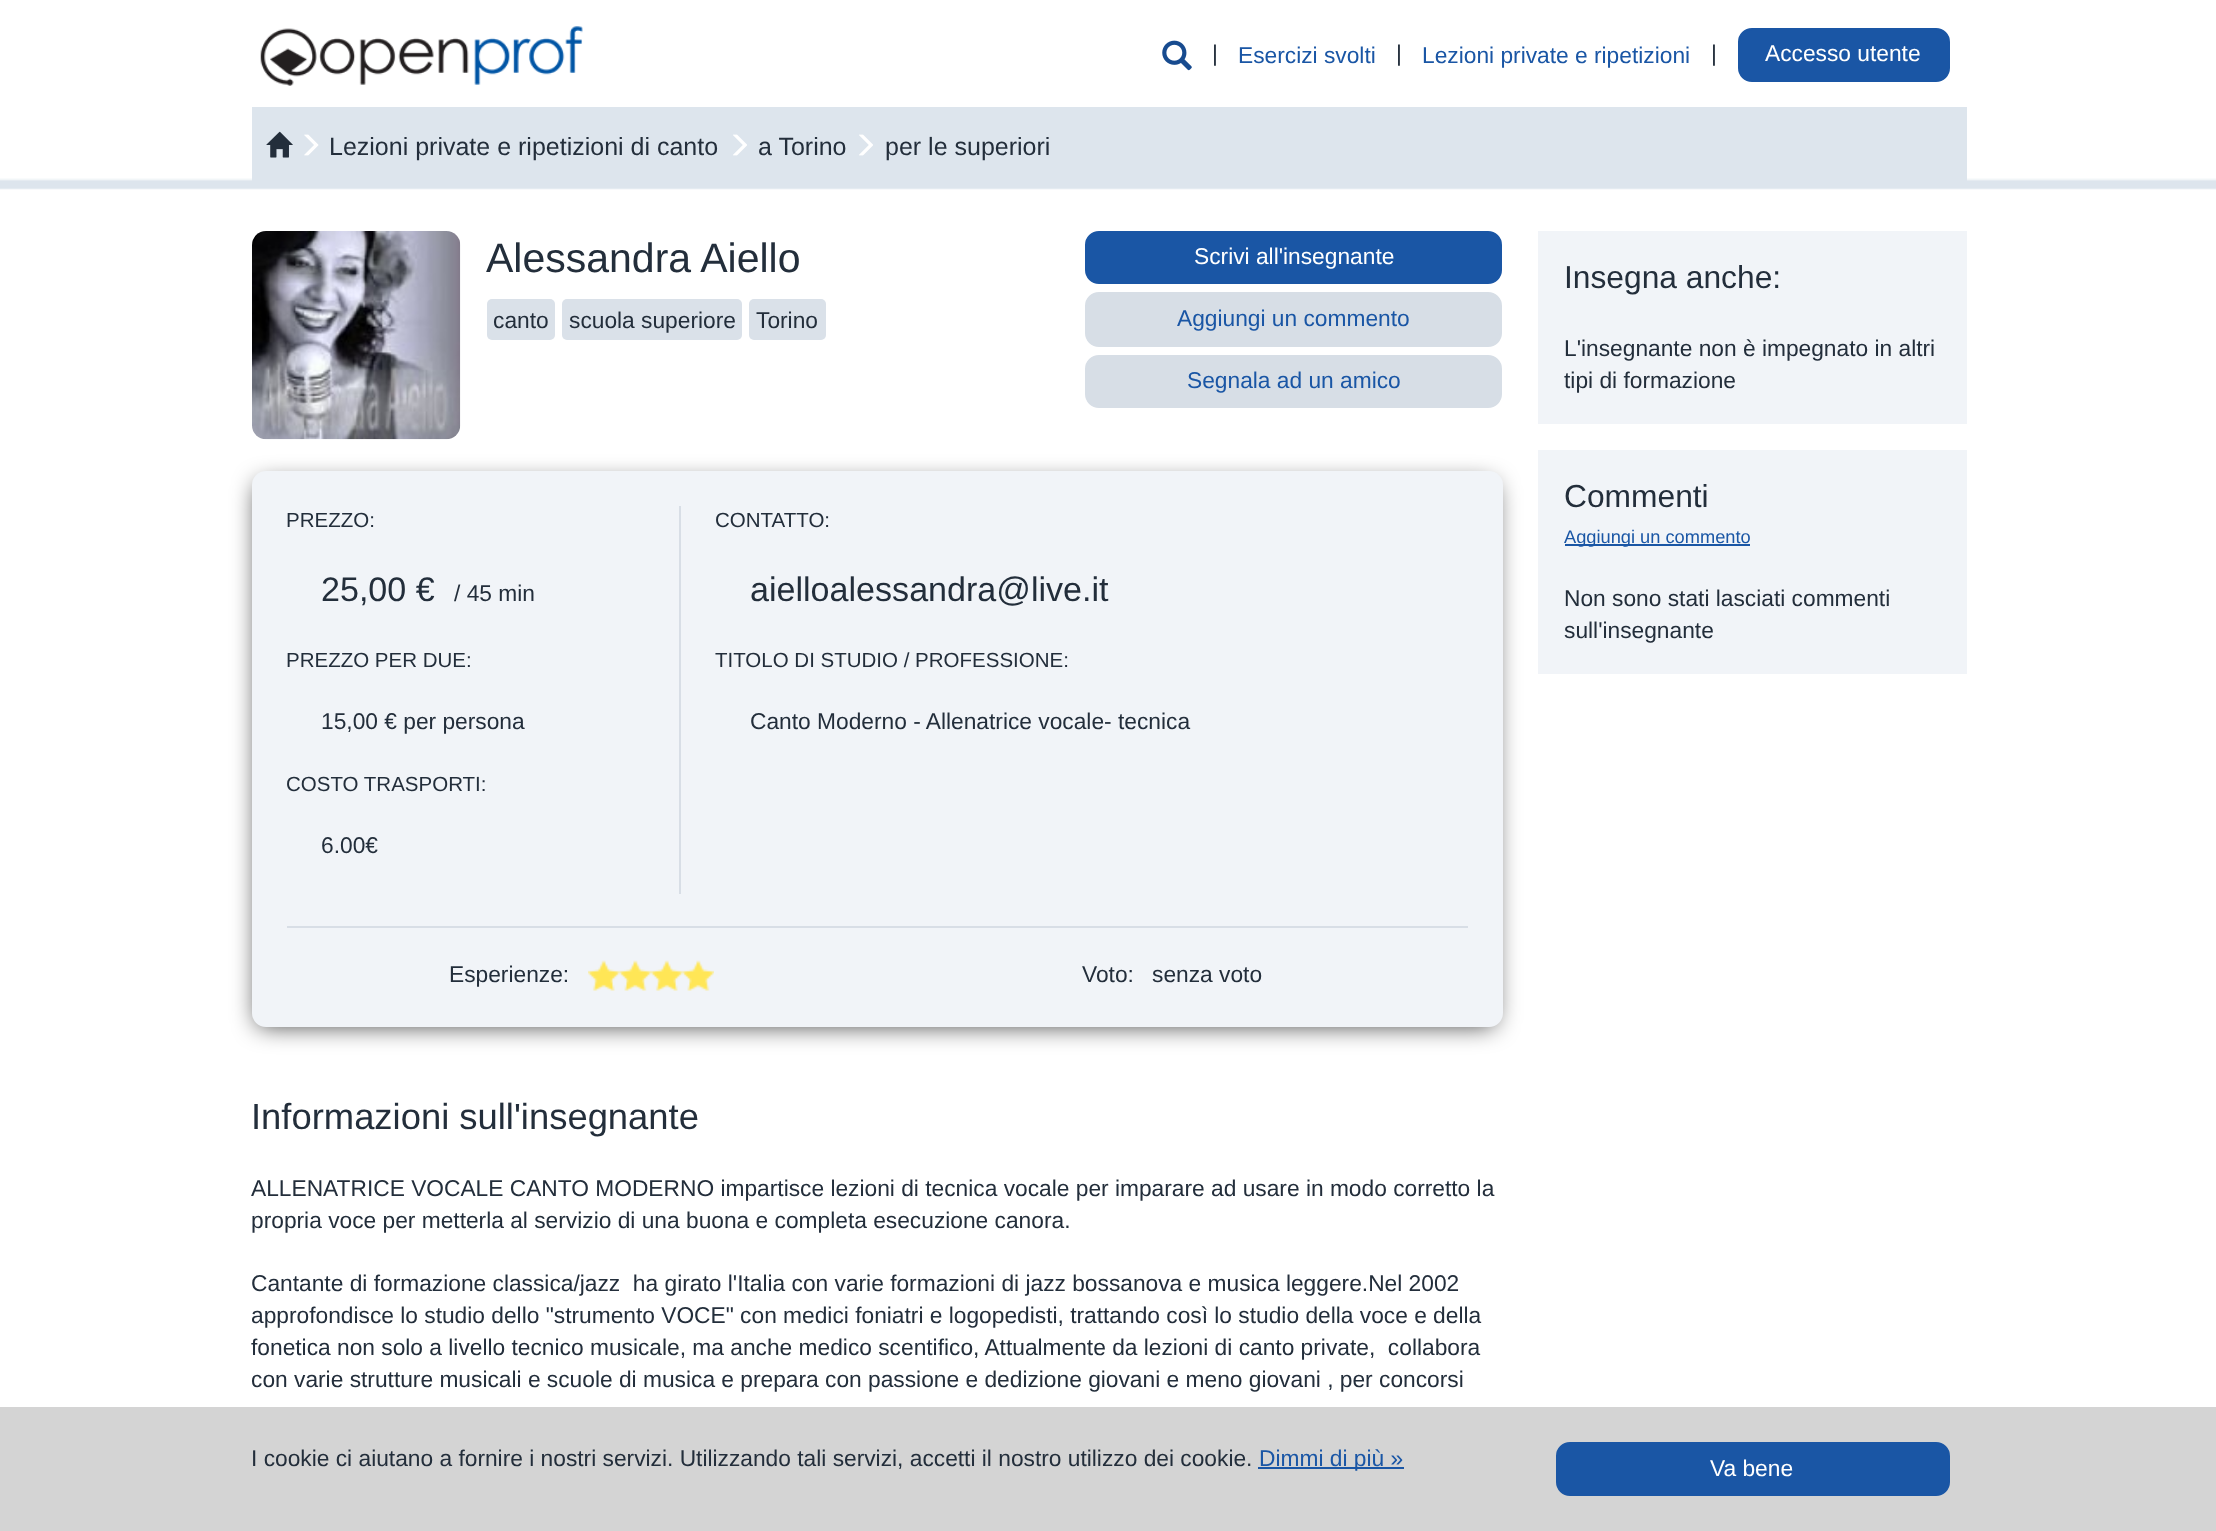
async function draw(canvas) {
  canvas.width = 2216
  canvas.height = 1531
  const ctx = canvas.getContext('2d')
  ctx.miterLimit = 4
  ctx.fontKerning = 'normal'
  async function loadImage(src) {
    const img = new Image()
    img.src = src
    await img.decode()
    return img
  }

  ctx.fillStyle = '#fff'
  ctx.fillRect(0, 0, 2216, 1531)
  ctx.drawImage(await loadImage('image0.png'), 0, 178, 2216, 12)
  ctx.drawImage(await loadImage('image1.png'), 260, 26, 323, 60)
  ctx.drawImage(await loadImage('image2.png'), 1162, 40, 30, 31)
  ctx.font = '22.75px Liberation Sans'
  ctx.fillStyle = '#232e3b'
  ctx.fillText('|', 1212, 61)
  ctx.fillStyle = '#1a56a5'
  ctx.fillText('Esercizi svolti', 1238, 63)
  ctx.fillStyle = '#232e3b'
  ctx.fillText('|', 1396, 61)
  ctx.fillStyle = '#1a56a5'
  ctx.fillText('Lezioni private e ripetizioni', 1422, 63)
  ctx.fillStyle = '#232e3b'
  ctx.fillText('|', 1711, 61)
  ctx.fillStyle = '#1a56a5'
  ctx.beginPath()
  ctx.roundRect(1739, 29, 210, 52, 13)
  ctx.fill()
  ctx.strokeStyle = '#1a56a5'
  ctx.lineWidth = 2
  ctx.stroke()
  ctx.fillStyle = '#fff'
  ctx.fillText('Accesso utente', 1765, 61)
  ctx.fillStyle = '#dde5ed'
  ctx.fillRect(252, 107, 1715, 74)
  ctx.drawImage(await loadImage('image3.png'), 266, 131, 27, 27)
  ctx.drawImage(await loadImage('image4.png'), 304, 134, 15, 22)
  ctx.font = '25px Liberation Sans'
  ctx.fillStyle = '#232e3b'
  ctx.fillText('Lezioni private e ripetizioni di canto', 329, 155)
  ctx.drawImage(await loadImage('image5.png'), 733, 134, 14, 22)
  ctx.fillText('a Torino', 758, 155)
  ctx.drawImage(await loadImage('image5.png'), 859, 134, 14, 22)
  ctx.fillText('per le superiori', 885, 155)
  ctx.drawImage(await loadImage('image6.png'), 252, 231, 209, 209)
  ctx.font = '41px Liberation Sans'
  ctx.fillText('Alessandra Aiello', 486, 272)
  ctx.fillStyle = '#dae1e9'
  ctx.beginPath()
  ctx.roundRect(487, 299, 68, 41, 5)
  ctx.fill()
  ctx.font = '22.75px Liberation Sans'
  ctx.fillStyle = '#232e3b'
  ctx.fillText('canto', 493, 328)
  ctx.fillStyle = '#dae1e9'
  ctx.beginPath()
  ctx.roundRect(562, 299, 180, 41, 5)
  ctx.fill()
  ctx.fillStyle = '#232e3b'
  ctx.fillText('scuola superiore', 569, 328)
  ctx.fillStyle = '#dae1e9'
  ctx.beginPath()
  ctx.roundRect(749, 299, 77, 41, 5)
  ctx.fill()
  ctx.fillStyle = '#232e3b'
  ctx.fillText('Torino', 756, 328)
  ctx.fillStyle = '#1a56a5'
  ctx.beginPath()
  ctx.roundRect(1086, 232, 415, 51, 13)
  ctx.fill()
  ctx.stroke()
  ctx.fillStyle = '#fff'
  ctx.fillText('Scrivi all\'insegnante', 1194, 264)
  ctx.fillStyle = '#d7dee6'
  ctx.beginPath()
  ctx.roundRect(1086, 293, 415, 53, 13)
  ctx.fill()
  ctx.strokeStyle = '#d7dee6'
  ctx.stroke()
  ctx.fillStyle = '#1a56a5'
  ctx.fillText('Aggiungi un commento', 1177, 326)
  ctx.fillStyle = '#d7dee6'
  ctx.beginPath()
  ctx.roundRect(1086, 356, 415, 51, 13)
  ctx.fill()
  ctx.stroke()
  ctx.fillStyle = '#1a56a5'
  ctx.fillText('Segnala ad un amico', 1187, 388)
  ctx.fillStyle = '#000000bf'
  ctx.filter = 'blur(12px)'
  ctx.beginPath()
  ctx.roundRect(257, 483, 1238, 543, 7)
  ctx.fill()
  ctx.filter = 'none'
  ctx.fillStyle = '#f1f4f8'
  ctx.beginPath()
  ctx.roundRect(252, 471, 1251, 556, 14)
  ctx.fill()
  ctx.fillStyle = '#d8dee6'
  ctx.fillRect(287, 926, 1181, 2)
  ctx.fillRect(679, 506, 2, 388)
  ctx.font = '20.5px Liberation Sans'
  ctx.fillStyle = '#232e3b'
  ctx.fillText('PREZZO:', 286, 527)
  ctx.font = '34.1px Liberation Sans'
  ctx.fillText('25,00 €', 321, 601)
  ctx.font = '22.75px Liberation Sans'
  ctx.fillText('/ 45 min', 454, 601)
  ctx.font = '20.5px Liberation Sans'
  ctx.fillText('PREZZO PER DUE:', 286, 667)
  ctx.font = '22.75px Liberation Sans'
  ctx.fillText('15,00 € per persona', 321, 729)
  ctx.font = '20.5px Liberation Sans'
  ctx.fillText('COSTO TRASPORTI:', 286, 791)
  ctx.font = '22.75px Liberation Sans'
  ctx.fillText('6.00€', 321, 853)
  ctx.font = '20.5px Liberation Sans'
  ctx.fillText('CONTATTO:', 715, 527)
  ctx.font = '34.1px Liberation Sans'
  ctx.fillText('aielloalessandra@live.it', 750, 601)
  ctx.font = '20.5px Liberation Sans'
  ctx.fillText('TITOLO DI STUDIO / PROFESSIONE:', 715, 667)
  ctx.font = '22.75px Liberation Sans'
  ctx.fillText('Canto Moderno - Allenatrice vocale- tecnica', 750, 729)
  ctx.fillText('Esperienze:', 449, 982)
  ctx.drawImage(await loadImage('image7.png'), 588, 960, 32, 31)
  ctx.drawImage(await loadImage('image8.png'), 619, 960, 32, 31)
  ctx.drawImage(await loadImage('image9.png'), 651, 960, 32, 31)
  ctx.drawImage(await loadImage('image8.png'), 682, 960, 32, 31)
  ctx.fillText('Voto:', 1082, 982)
  ctx.fillText('senza voto', 1152, 982)
  ctx.font = '36.4px Liberation Sans'
  ctx.fillText('Informazioni sull\'insegnante', 251, 1129)
  ctx.font = '22.75px Liberation Sans'
  ctx.fillText('ALLENATRICE VOCALE CANTO MODERNO impartisce lezioni di tecnica vocale per imparare ad usare in modo corretto la', 251, 1196)
  ctx.fillText('propria voce per metterla al servizio di una buona e completa esecuzione canora.', 251, 1228)
  ctx.fillText('Cantante di formazione classica/jazz  ha girato l\'Italia con varie formazioni di jazz bossanova e musica leggere.Nel 2002', 251, 1291)
  ctx.fillText('approfondisce lo studio dello "strumento VOCE" con medici foniatri e logopedisti, trattando così lo studio della voce e della', 251, 1323)
  ctx.fillText('fonetica non solo a livello tecnico musicale, ma anche medico scentifico, Attualmente da lezioni di canto private,  collabora', 251, 1355)
  ctx.fillText('con varie strutture musicali e scuole di musica e prepara con passione e dedizione giovani e meno giovani , per concorsi', 251, 1387)
  ctx.fillStyle = '#f1f4f8'
  ctx.fillRect(1538, 231, 429, 193)
  ctx.font = '31.75px Liberation Sans'
  ctx.fillStyle = '#232e3b'
  ctx.fillText('Insegna anche:', 1564, 288)
  ctx.font = '22.75px Liberation Sans'
  ctx.fillText('L\'insegnante non è impegnato in altri', 1564, 356)
  ctx.fillText('tipi di formazione', 1564, 388)
  ctx.fillStyle = '#f1f4f8'
  ctx.fillRect(1538, 450, 429, 224)
  ctx.font = '31.75px Liberation Sans'
  ctx.fillStyle = '#232e3b'
  ctx.fillText('Commenti', 1564, 507)
  ctx.fillStyle = '#1a56a5'
  ctx.fillRect(1565, 544, 185, 2)
  ctx.font = '18.25px Liberation Sans'
  ctx.fillText('Aggiungi un commento', 1564, 543)
  ctx.font = '22.75px Liberation Sans'
  ctx.fillStyle = '#232e3b'
  ctx.fillText('Non sono stati lasciati commenti', 1564, 606)
  ctx.fillText('sull\'insegnante', 1564, 638)
  ctx.fillStyle = '#d4d4d4'
  ctx.fillRect(0, 1407, 2216, 124)
  ctx.fillStyle = '#232e3b'
  ctx.fillText('I cookie ci aiutano a fornire i nostri servizi. Utilizzando tali servizi, accetti il nostro utilizzo dei cookie.', 251, 1466)
  ctx.fillStyle = '#1a56a5'
  ctx.fillRect(1258, 1467, 146, 2)
  ctx.fillText('Dimmi di più »', 1259, 1466)
  ctx.beginPath()
  ctx.roundRect(1557, 1443, 392, 52, 13)
  ctx.fill()
  ctx.strokeStyle = '#1a56a5'
  ctx.stroke()
  ctx.fillStyle = '#fff'
  ctx.fillText('Va bene', 1710, 1476)
}

draw(document.querySelector('canvas'))
